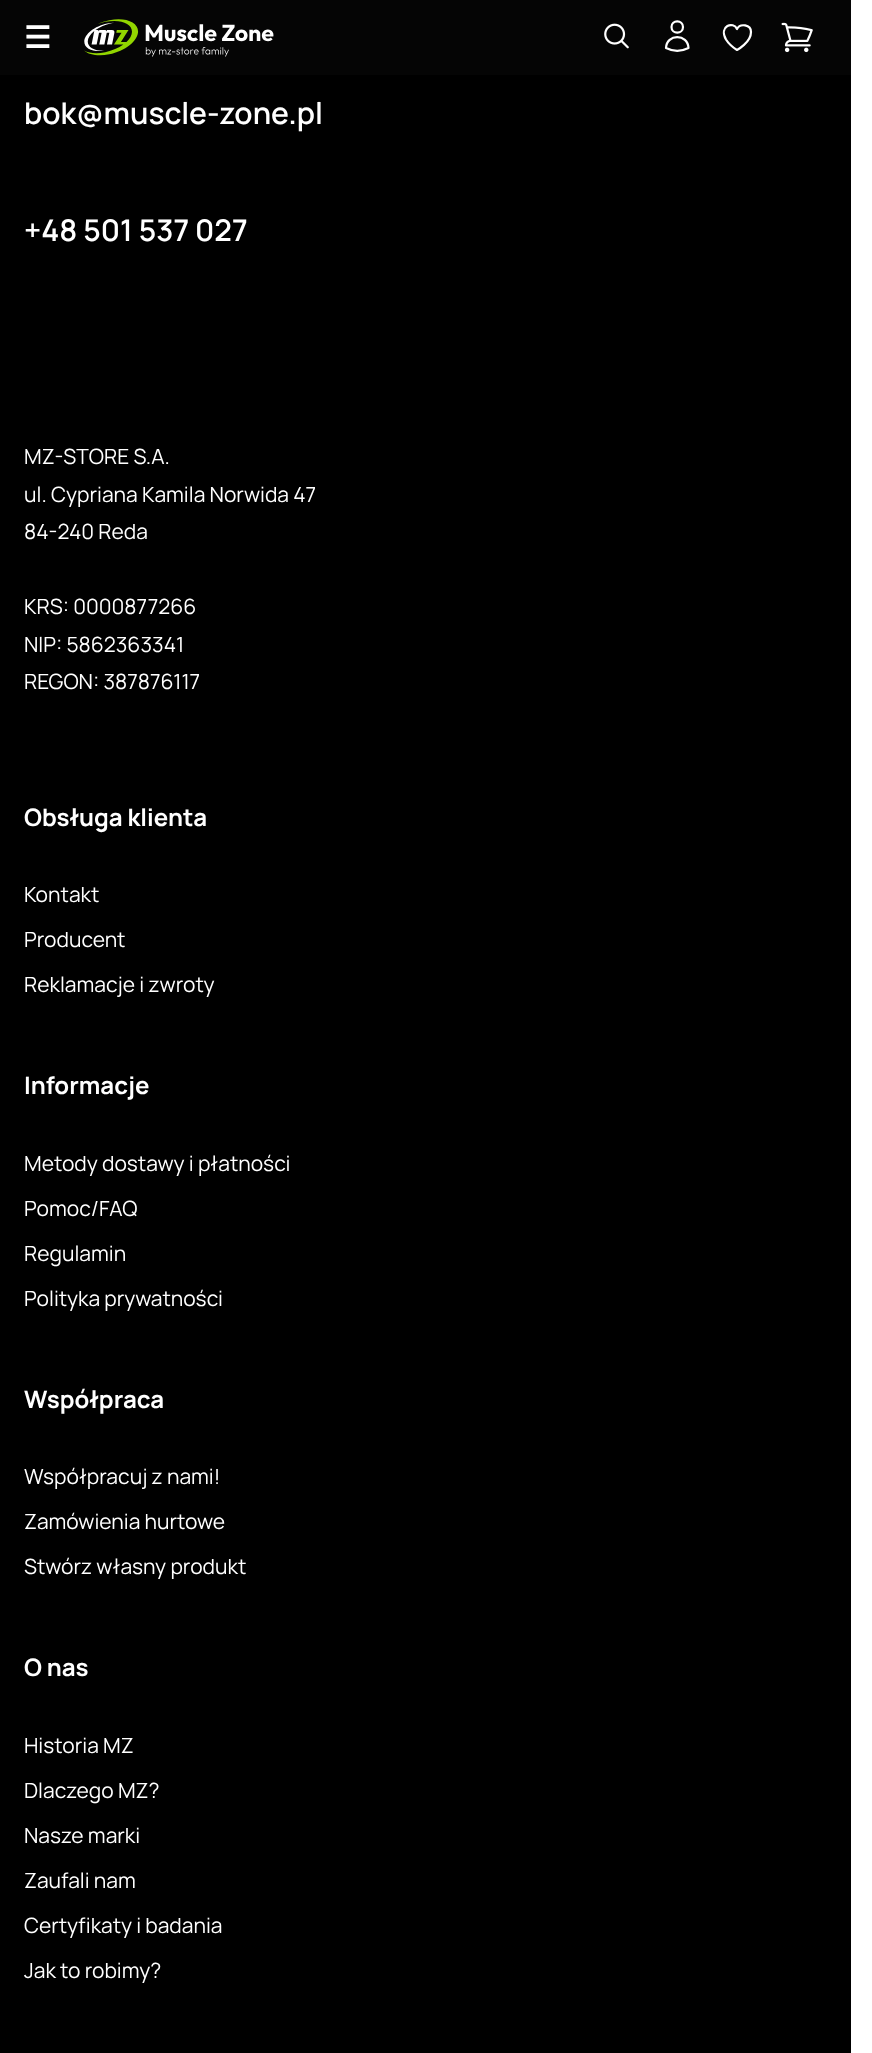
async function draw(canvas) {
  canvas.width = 872
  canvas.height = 2053
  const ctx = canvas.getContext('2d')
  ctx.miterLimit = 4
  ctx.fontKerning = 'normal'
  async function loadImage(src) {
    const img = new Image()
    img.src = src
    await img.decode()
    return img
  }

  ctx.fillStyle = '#fff'
  ctx.fillRect(0, 0, 872, 2053)
  ctx.fillStyle = '#050505'
  ctx.fillRect(0, 0, 851, 75)
  ctx.font = 'bold 30px DejaVu Sans'
  ctx.fillStyle = '#fff'
  ctx.fillText('☰', 24, 48)
  ctx.drawImage(await loadImage('image0.png'), 84, 19, 190, 38)
  ctx.drawImage(await loadImage('image1.png'), 604, 23, 25, 26)
  ctx.beginPath()
  ctx.moveTo(683, 27)
  ctx.bezierCurveTo(683, 34.5, 671.5, 34.5, 671.5, 27)
  ctx.bezierCurveTo(671.5, 19.5, 683, 19.5, 683, 27)
  ctx.closePath()
  ctx.moveTo(666, 48)
  ctx.bezierCurveTo(666.5, 33.5, 688, 33.5, 688.5, 48)
  ctx.bezierCurveTo(681.5, 51.5, 673, 51.5, 666, 48)
  ctx.closePath()
  ctx.strokeStyle = '#fff'
  ctx.lineWidth = 2.2
  ctx.lineCap = 'round'
  ctx.lineJoin = 'round'
  ctx.stroke()
  ctx.beginPath()
  ctx.moveTo(751, 32)
  ctx.bezierCurveTo(751, 24.5, 740, 23, 737, 29)
  ctx.bezierCurveTo(733.5, 21, 718.5, 25.5, 726, 39.5)
  ctx.bezierCurveTo(728.5, 43.5, 733, 47.5, 737, 50)
  ctx.bezierCurveTo(737, 50, 751, 42.5, 751, 32)
  ctx.closePath()
  ctx.stroke()
  ctx.drawImage(await loadImage('image2.png'), 781, 22, 32, 31)
  ctx.fillStyle = '#000'
  ctx.fillRect(0, 75, 851, 1978)
  ctx.font = '600 30px Manrope'
  ctx.fillStyle = '#fff'
  ctx.fillText('bok@muscle-zone.pl', 24, 124)
  ctx.fillText('+48 501 537 027', 24, 241)
  ctx.font = '21px Manrope'
  ctx.fillText('MZ-STORE S.A.', 24, 464)
  ctx.fillText('ul. Cypriana Kamila Norwida 47', 24, 502)
  ctx.fillText('84-240 Reda', 24, 539)
  ctx.fillText('KRS: 0000877266', 24, 614)
  ctx.fillText('NIP: 5862363341', 24, 652)
  ctx.fillText('REGON: 387876117', 24, 689)
  ctx.font = 'bold 24px Manrope'
  ctx.fillText('Obsługa klienta', 24, 826)
  ctx.font = '21px Manrope'
  ctx.fillText('Kontakt', 24, 902)
  ctx.fillText('Producent', 24, 947)
  ctx.fillText('Reklamacje i zwroty', 24, 992)
  ctx.font = 'bold 24px Manrope'
  ctx.fillText('Informacje', 24, 1094)
  ctx.font = '21px Manrope'
  ctx.fillText('Metody dostawy i płatności', 24, 1171)
  ctx.fillText('Pomoc/FAQ', 24, 1216)
  ctx.fillText('Regulamin', 24, 1261)
  ctx.fillText('Polityka prywatności', 24, 1306)
  ctx.font = 'bold 24px Manrope'
  ctx.fillText('Współpraca', 24, 1408)
  ctx.font = '21px Manrope'
  ctx.fillText('Współpracuj z nami!', 24, 1484)
  ctx.fillText('Zamówienia hurtowe', 24, 1529)
  ctx.fillText('Stwórz własny produkt', 24, 1574)
  ctx.font = 'bold 24px Manrope'
  ctx.fillText('O nas', 24, 1676)
  ctx.font = '21px Manrope'
  ctx.fillText('Historia MZ', 24, 1753)
  ctx.fillText('Dlaczego MZ?', 24, 1798)
  ctx.fillText('Nasze marki', 24, 1843)
  ctx.fillText('Zaufali nam', 24, 1888)
  ctx.fillText('Certyfikaty i badania', 24, 1933)
  ctx.fillText('Jak to robimy?', 24, 1978)
}

draw(document.querySelector('canvas'))
